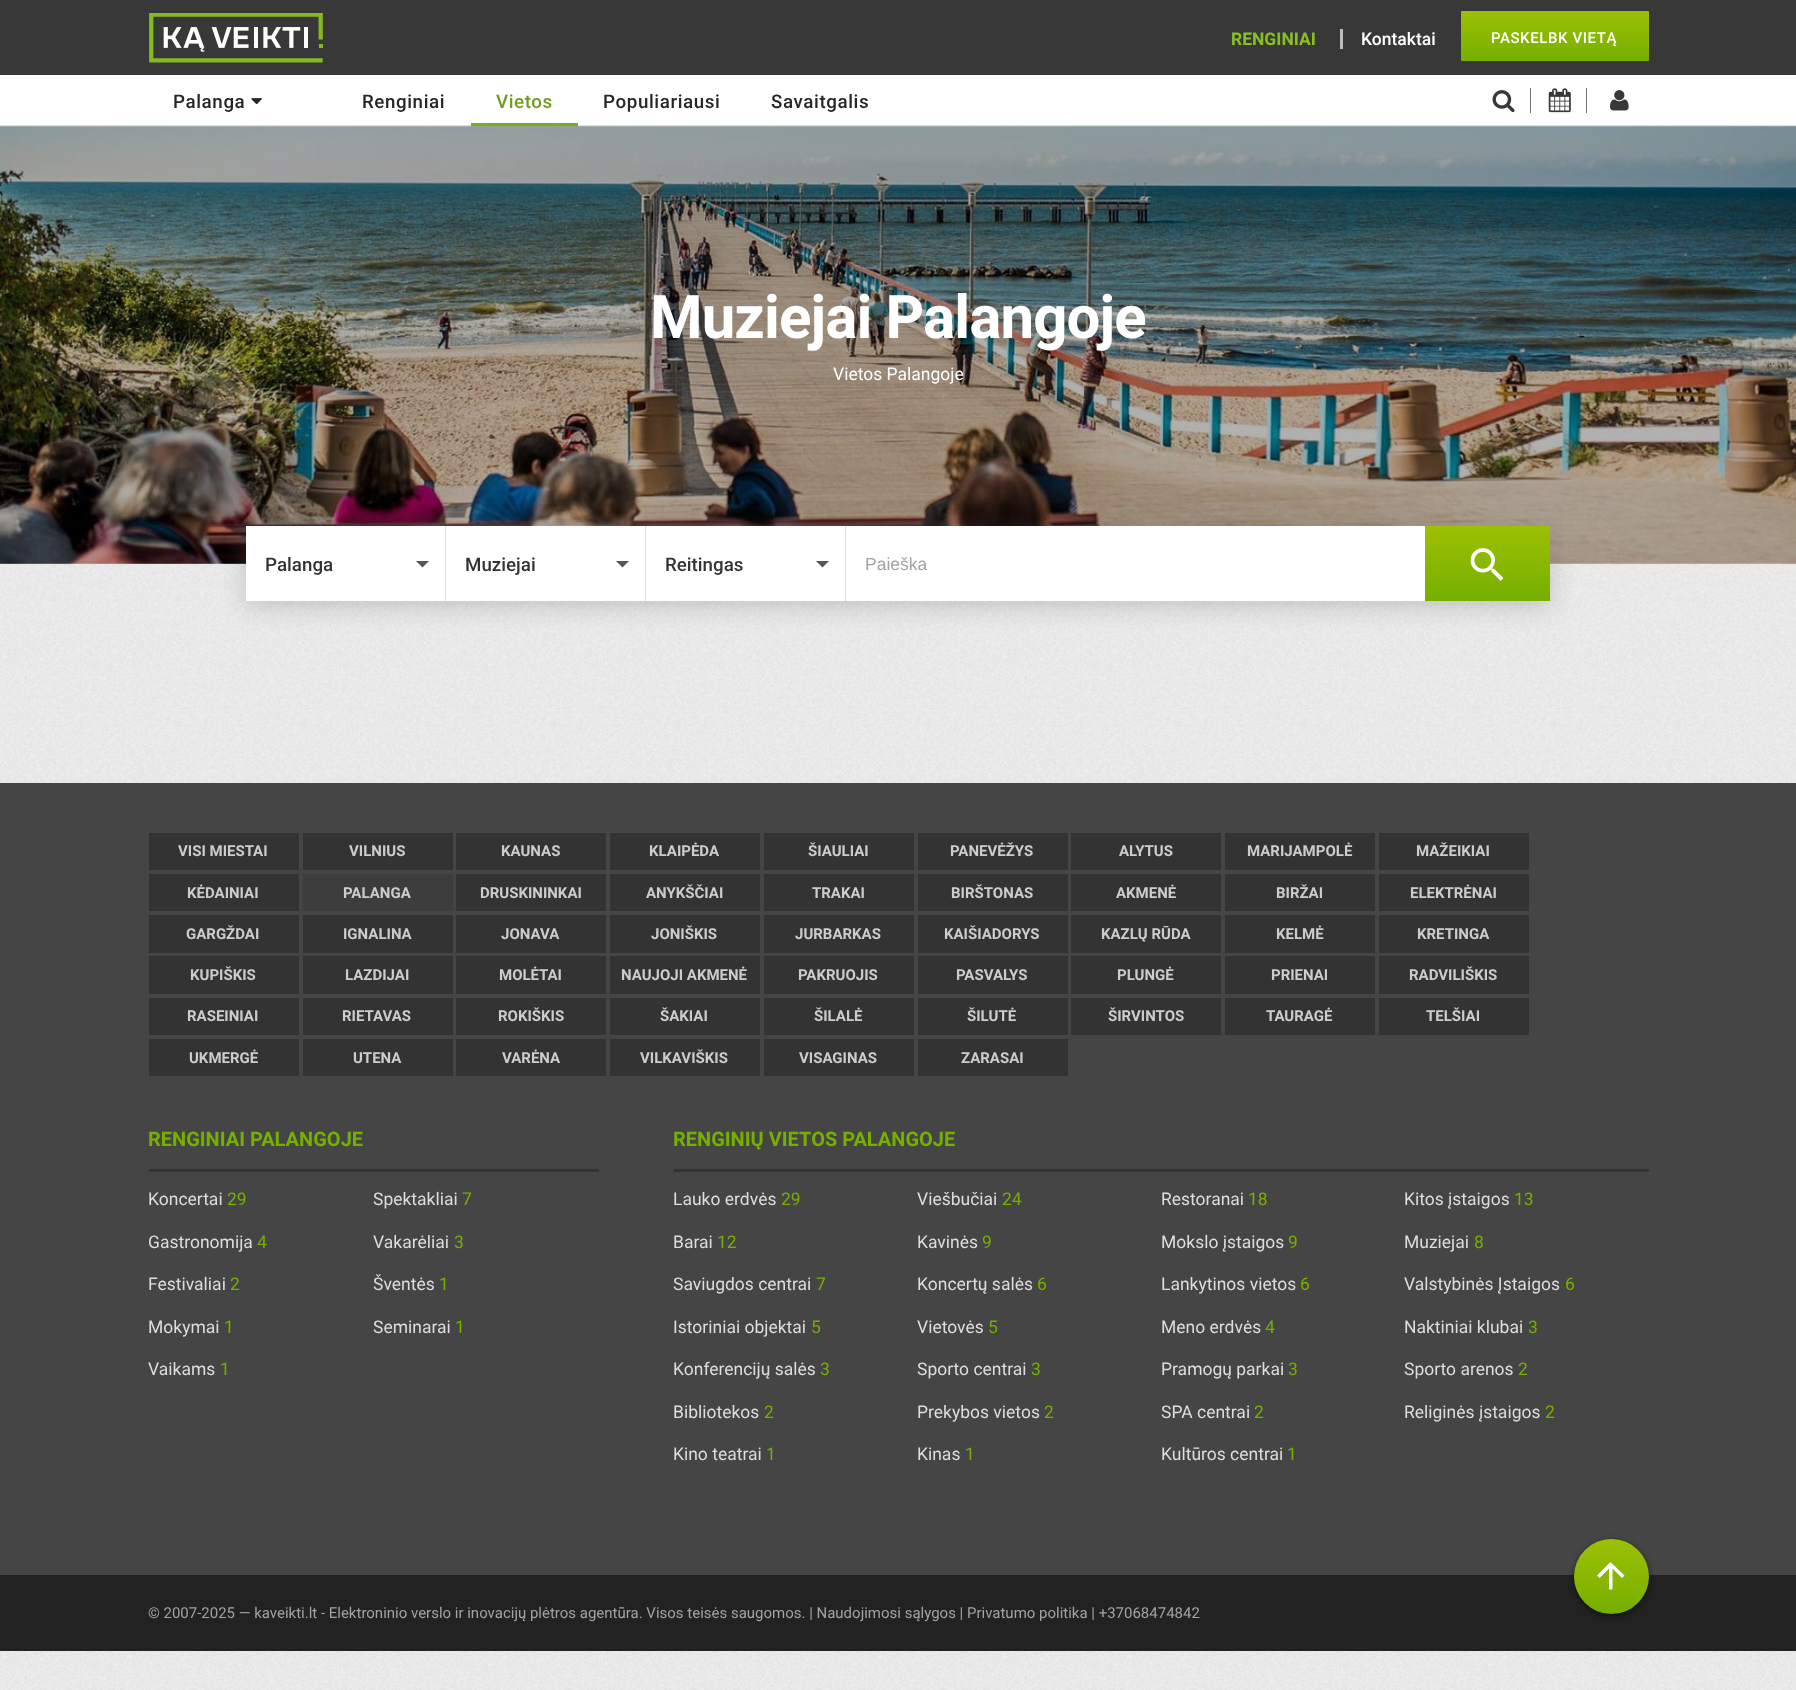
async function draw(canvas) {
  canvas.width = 1796
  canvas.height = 1690
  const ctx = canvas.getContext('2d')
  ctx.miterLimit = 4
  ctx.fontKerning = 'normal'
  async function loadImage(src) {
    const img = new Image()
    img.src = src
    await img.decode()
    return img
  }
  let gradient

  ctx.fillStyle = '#fff'
  ctx.fillRect(0, 0, 1796, 1690)
  ctx.drawImage(await loadImage('image0.png'), 0, 126, 1796, 1564)
  ctx.fillStyle = '#383838'
  ctx.fillRect(0, 0, 1796, 75)
  ctx.drawImage(await loadImage('image1.png'), 149, 13, 174, 50)
  ctx.font = 'bold 17.5px Roboto'
  ctx.fillStyle = '#88c024'
  ctx.fillText('RENGINIAI', 1231, 45)
  ctx.font = '500 17.5px Roboto'
  ctx.fillStyle = '#fff'
  ctx.fillText('Kontaktai', 1361, 45)
  ctx.fillStyle = '#bdbdbd'
  ctx.fillRect(1340, 29, 3, 20)
  gradient = ctx.createLinearGradient(1555, 11, 1555, 61)
  gradient.addColorStop(0, '#9cc006')
  gradient.addColorStop(1, '#76af00')
  ctx.fillStyle = gradient
  ctx.beginPath()
  ctx.roundRect(1461, 11, 188, 50, 1)
  ctx.fill()
  ctx.letterSpacing = '0.6px'
  ctx.font = '500 15px Roboto'
  ctx.fillStyle = '#fff'
  ctx.fillText('PASKELBK VIETĄ', 1491, 43)
  ctx.fillStyle = '#ddd'
  ctx.fillRect(0, 125, 1796, 1)
  ctx.font = '500 18.75px Roboto'
  ctx.fillStyle = '#282525'
  ctx.fillText('Palanga', 173, 108)
  ctx.drawImage(await loadImage('image2.png'), 251, 98, 11, 7)
  ctx.fillText('Renginiai', 362, 108)
  ctx.fillStyle = '#7cad21'
  ctx.fillRect(471, 123, 107, 4)
  ctx.fillStyle = '#709d1e'
  ctx.fillText('Vietos', 496, 108)
  ctx.fillStyle = '#282525'
  ctx.fillText('Populiariausi', 603, 108)
  ctx.fillText('Savaitgalis', 771, 108)
  ctx.drawImage(await loadImage('image3.png'), 1492, 90, 23, 23)
  ctx.fillStyle = '#777'
  ctx.fillRect(1530, 88, 1, 25)
  ctx.drawImage(await loadImage('image4.png'), 1548, 88, 23, 25)
  ctx.fillRect(1586, 88, 1, 25)
  ctx.drawImage(await loadImage('image5.png'), 1610, 90, 19, 21)
  ctx.drawImage(await loadImage('image6.png'), 0, 126, 1796, 438)
  ctx.letterSpacing = '-0.9px'
  ctx.font = 'bold 60px Roboto'
  ctx.fillStyle = '#fff'
  ctx.fillText('Muziejai Palangoje', 650, 338)
  ctx.letterSpacing = '0px'
  ctx.font = '17.5px Roboto'
  ctx.fillText('Vietos Palangoje', 833, 380)
  ctx.fillStyle = '#72727257'
  ctx.filter = 'blur(12.5px)'
  ctx.beginPath()
  ctx.rect(246, 531, 1304, 75)
  ctx.fill()
  ctx.filter = 'none'
  ctx.fillStyle = '#fff'
  ctx.fillRect(246, 526, 1179, 75)
  ctx.fillStyle = '#ddd'
  ctx.fillRect(445, 526, 1, 75)
  ctx.font = '500 18.75px Roboto'
  ctx.fillStyle = '#333'
  ctx.fillText('Palanga', 265, 571)
  ctx.fillStyle = '#575757'
  ctx.beginPath()
  ctx.moveTo(416, 561)
  ctx.lineTo(429, 561)
  ctx.lineTo(422.5, 567.5)
  ctx.closePath()
  ctx.fill()
  ctx.fillStyle = '#ddd'
  ctx.fillRect(645, 526, 1, 75)
  ctx.fillStyle = '#333'
  ctx.fillText('Muziejai', 465, 571)
  ctx.fillStyle = '#575757'
  ctx.beginPath()
  ctx.moveTo(616, 561)
  ctx.lineTo(629, 561)
  ctx.lineTo(622.5, 567.5)
  ctx.closePath()
  ctx.fill()
  ctx.fillStyle = '#ddd'
  ctx.fillRect(845, 526, 1, 75)
  ctx.fillStyle = '#333'
  ctx.fillText('Reitingas', 665, 571)
  ctx.fillStyle = '#575757'
  ctx.beginPath()
  ctx.moveTo(816, 561)
  ctx.lineTo(829, 561)
  ctx.lineTo(822.5, 567.5)
  ctx.closePath()
  ctx.fill()
  ctx.font = '17.5px Liberation Sans'
  ctx.fillStyle = '#a3a3a3'
  ctx.fillText('Paieška', 865, 570)
  gradient = ctx.createLinearGradient(1488, 526, 1488, 601)
  gradient.addColorStop(0, '#9cc004')
  gradient.addColorStop(1, '#76af00')
  ctx.fillStyle = gradient
  ctx.fillRect(1425, 526, 125, 75)
  ctx.drawImage(await loadImage('image7.png'), 1470, 548, 34, 33)
  ctx.fillStyle = '#454545'
  ctx.fillRect(0, 783, 1796, 792)
  ctx.fillStyle = '#333'
  ctx.fillRect(149, 833, 150, 37)
  ctx.font = 'bold 15px Roboto'
  ctx.fillStyle = '#ccc'
  ctx.fillText('VISI MIESTAI', 178, 856)
  ctx.fillStyle = '#333'
  ctx.fillRect(303, 833, 150, 37)
  ctx.fillStyle = '#ccc'
  ctx.fillText('VILNIUS', 349, 856)
  ctx.fillStyle = '#333'
  ctx.fillRect(456, 833, 150, 37)
  ctx.fillStyle = '#ccc'
  ctx.fillText('KAUNAS', 501, 856)
  ctx.fillStyle = '#333'
  ctx.fillRect(610, 833, 150, 37)
  ctx.fillStyle = '#ccc'
  ctx.fillText('KLAIPĖDA', 649, 856)
  ctx.fillStyle = '#333'
  ctx.fillRect(764, 833, 150, 37)
  ctx.fillStyle = '#ccc'
  ctx.fillText('ŠIAULIAI', 808, 856)
  ctx.fillStyle = '#333'
  ctx.fillRect(918, 833, 150, 37)
  ctx.fillStyle = '#ccc'
  ctx.fillText('PANEVĖŽYS', 950, 856)
  ctx.fillStyle = '#333'
  ctx.fillRect(1071, 833, 150, 37)
  ctx.fillStyle = '#ccc'
  ctx.fillText('ALYTUS', 1119, 856)
  ctx.fillStyle = '#333'
  ctx.fillRect(1225, 833, 150, 37)
  ctx.fillStyle = '#ccc'
  ctx.fillText('MARIJAMPOLĖ', 1247, 856)
  ctx.fillStyle = '#333'
  ctx.fillRect(1379, 833, 150, 37)
  ctx.fillStyle = '#ccc'
  ctx.fillText('MAŽEIKIAI', 1416, 856)
  ctx.fillStyle = '#333'
  ctx.fillRect(149, 874, 150, 37)
  ctx.fillStyle = '#ccc'
  ctx.fillText('KĖDAINIAI', 187, 898)
  ctx.fillStyle = '#3d3d3d'
  ctx.fillRect(303, 874, 150, 37)
  ctx.fillStyle = '#ccc'
  ctx.fillText('PALANGA', 343, 898)
  ctx.fillStyle = '#333'
  ctx.fillRect(456, 874, 150, 37)
  ctx.fillStyle = '#ccc'
  ctx.fillText('DRUSKININKAI', 480, 898)
  ctx.fillStyle = '#333'
  ctx.fillRect(610, 874, 150, 37)
  ctx.fillStyle = '#ccc'
  ctx.fillText('ANYKŠČIAI', 646, 898)
  ctx.fillStyle = '#333'
  ctx.fillRect(764, 874, 150, 37)
  ctx.fillStyle = '#ccc'
  ctx.fillText('TRAKAI', 812, 898)
  ctx.fillStyle = '#333'
  ctx.fillRect(918, 874, 150, 37)
  ctx.fillStyle = '#ccc'
  ctx.fillText('BIRŠTONAS', 951, 898)
  ctx.fillStyle = '#333'
  ctx.fillRect(1071, 874, 150, 37)
  ctx.fillStyle = '#ccc'
  ctx.fillText('AKMENĖ', 1116, 898)
  ctx.fillStyle = '#333'
  ctx.fillRect(1225, 874, 150, 37)
  ctx.fillStyle = '#ccc'
  ctx.fillText('BIRŽAI', 1276, 898)
  ctx.fillStyle = '#333'
  ctx.fillRect(1379, 874, 150, 37)
  ctx.fillStyle = '#ccc'
  ctx.fillText('ELEKTRĖNAI', 1410, 898)
  ctx.fillStyle = '#333'
  ctx.fillRect(149, 915, 150, 38)
  ctx.fillStyle = '#ccc'
  ctx.fillText('GARGŽDAI', 186, 939)
  ctx.fillStyle = '#333'
  ctx.fillRect(303, 915, 150, 38)
  ctx.fillStyle = '#ccc'
  ctx.fillText('IGNALINA', 343, 939)
  ctx.fillStyle = '#333'
  ctx.fillRect(456, 915, 150, 38)
  ctx.fillStyle = '#ccc'
  ctx.fillText('JONAVA', 501, 939)
  ctx.fillStyle = '#333'
  ctx.fillRect(610, 915, 150, 38)
  ctx.fillStyle = '#ccc'
  ctx.fillText('JONIŠKIS', 651, 939)
  ctx.fillStyle = '#333'
  ctx.fillRect(764, 915, 150, 38)
  ctx.fillStyle = '#ccc'
  ctx.fillText('JURBARKAS', 795, 939)
  ctx.fillStyle = '#333'
  ctx.fillRect(918, 915, 150, 38)
  ctx.fillStyle = '#ccc'
  ctx.fillText('KAIŠIADORYS', 944, 939)
  ctx.fillStyle = '#333'
  ctx.fillRect(1071, 915, 150, 38)
  ctx.fillStyle = '#ccc'
  ctx.fillText('KAZLŲ RŪDA', 1101, 939)
  ctx.fillStyle = '#333'
  ctx.fillRect(1225, 915, 150, 38)
  ctx.fillStyle = '#ccc'
  ctx.fillText('KELMĖ', 1276, 939)
  ctx.fillStyle = '#333'
  ctx.fillRect(1379, 915, 150, 38)
  ctx.fillStyle = '#ccc'
  ctx.fillText('KRETINGA', 1417, 939)
  ctx.fillStyle = '#333'
  ctx.fillRect(149, 956, 150, 38)
  ctx.fillStyle = '#ccc'
  ctx.fillText('KUPIŠKIS', 190, 980)
  ctx.fillStyle = '#333'
  ctx.fillRect(303, 956, 150, 38)
  ctx.fillStyle = '#ccc'
  ctx.fillText('LAZDIJAI', 345, 980)
  ctx.fillStyle = '#333'
  ctx.fillRect(456, 956, 150, 38)
  ctx.fillStyle = '#ccc'
  ctx.fillText('MOLĖTAI', 499, 980)
  ctx.fillStyle = '#333'
  ctx.fillRect(610, 956, 150, 38)
  ctx.fillStyle = '#ccc'
  ctx.fillText('NAUJOJI AKMENĖ', 621, 980)
  ctx.fillStyle = '#333'
  ctx.fillRect(764, 956, 150, 38)
  ctx.fillStyle = '#ccc'
  ctx.fillText('PAKRUOJIS', 798, 980)
  ctx.fillStyle = '#333'
  ctx.fillRect(918, 956, 150, 38)
  ctx.fillStyle = '#ccc'
  ctx.fillText('PASVALYS', 956, 980)
  ctx.fillStyle = '#333'
  ctx.fillRect(1071, 956, 150, 38)
  ctx.fillStyle = '#ccc'
  ctx.fillText('PLUNGĖ', 1117, 980)
  ctx.fillStyle = '#333'
  ctx.fillRect(1225, 956, 150, 38)
  ctx.fillStyle = '#ccc'
  ctx.fillText('PRIENAI', 1271, 980)
  ctx.fillStyle = '#333'
  ctx.fillRect(1379, 956, 150, 38)
  ctx.fillStyle = '#ccc'
  ctx.fillText('RADVILIŠKIS', 1409, 980)
  ctx.fillStyle = '#333'
  ctx.fillRect(149, 998, 150, 37)
  ctx.fillStyle = '#ccc'
  ctx.fillText('RASEINIAI', 187, 1021)
  ctx.fillStyle = '#333'
  ctx.fillRect(303, 998, 150, 37)
  ctx.fillStyle = '#ccc'
  ctx.fillText('RIETAVAS', 342, 1021)
  ctx.fillStyle = '#333'
  ctx.fillRect(456, 998, 150, 37)
  ctx.fillStyle = '#ccc'
  ctx.fillText('ROKIŠKIS', 498, 1021)
  ctx.fillStyle = '#333'
  ctx.fillRect(610, 998, 150, 37)
  ctx.fillStyle = '#ccc'
  ctx.fillText('ŠAKIAI', 660, 1021)
  ctx.fillStyle = '#333'
  ctx.fillRect(764, 998, 150, 37)
  ctx.fillStyle = '#ccc'
  ctx.fillText('ŠILALĖ', 814, 1021)
  ctx.fillStyle = '#333'
  ctx.fillRect(918, 998, 150, 37)
  ctx.fillStyle = '#ccc'
  ctx.fillText('ŠILUTĖ', 967, 1021)
  ctx.fillStyle = '#333'
  ctx.fillRect(1071, 998, 150, 37)
  ctx.fillStyle = '#ccc'
  ctx.fillText('ŠIRVINTOS', 1108, 1021)
  ctx.fillStyle = '#333'
  ctx.fillRect(1225, 998, 150, 37)
  ctx.fillStyle = '#ccc'
  ctx.fillText('TAURAGĖ', 1266, 1021)
  ctx.fillStyle = '#333'
  ctx.fillRect(1379, 998, 150, 37)
  ctx.fillStyle = '#ccc'
  ctx.fillText('TELŠIAI', 1426, 1021)
  ctx.fillStyle = '#333'
  ctx.fillRect(149, 1039, 150, 37)
  ctx.fillStyle = '#ccc'
  ctx.fillText('UKMERGĖ', 189, 1063)
  ctx.fillStyle = '#333'
  ctx.fillRect(303, 1039, 150, 37)
  ctx.fillStyle = '#ccc'
  ctx.fillText('UTENA', 353, 1063)
  ctx.fillStyle = '#333'
  ctx.fillRect(456, 1039, 150, 37)
  ctx.fillStyle = '#ccc'
  ctx.fillText('VARĖNA', 502, 1063)
  ctx.fillStyle = '#333'
  ctx.fillRect(610, 1039, 150, 37)
  ctx.fillStyle = '#ccc'
  ctx.fillText('VILKAVIŠKIS', 640, 1063)
  ctx.fillStyle = '#333'
  ctx.fillRect(764, 1039, 150, 37)
  ctx.fillStyle = '#ccc'
  ctx.fillText('VISAGINAS', 799, 1063)
  ctx.fillStyle = '#333'
  ctx.fillRect(918, 1039, 150, 37)
  ctx.fillStyle = '#ccc'
  ctx.fillText('ZARASAI', 961, 1063)
  ctx.fillStyle = '#333'
  ctx.fillRect(149, 1169, 450, 3)
  ctx.font = 'bold 20px Roboto'
  ctx.fillStyle = '#76af00'
  ctx.fillText('RENGINIAI PALANGOJE', 148, 1146)
  ctx.font = '17.5px Roboto'
  ctx.fillStyle = '#ddd'
  ctx.fillText('Koncertai', 148, 1205)
  ctx.fillStyle = '#76af00'
  ctx.fillText('29', 227, 1205)
  ctx.fillStyle = '#ddd'
  ctx.fillText('Spektakliai', 373, 1205)
  ctx.fillStyle = '#76af00'
  ctx.fillText('7', 462, 1205)
  ctx.fillStyle = '#ddd'
  ctx.fillText('Gastronomija', 148, 1248)
  ctx.fillStyle = '#76af00'
  ctx.fillText('4', 257, 1248)
  ctx.fillStyle = '#ddd'
  ctx.fillText('Vakarėliai', 373, 1248)
  ctx.fillStyle = '#76af00'
  ctx.fillText('3', 454, 1248)
  ctx.fillStyle = '#ddd'
  ctx.fillText('Festivaliai', 148, 1290)
  ctx.fillStyle = '#76af00'
  ctx.fillText('2', 230, 1290)
  ctx.fillStyle = '#ddd'
  ctx.fillText('Šventės', 373, 1290)
  ctx.fillStyle = '#76af00'
  ctx.fillText('1', 439, 1290)
  ctx.fillStyle = '#ddd'
  ctx.fillText('Mokymai', 148, 1333)
  ctx.fillStyle = '#76af00'
  ctx.fillText('1', 224, 1333)
  ctx.fillStyle = '#ddd'
  ctx.fillText('Seminarai', 373, 1333)
  ctx.fillStyle = '#76af00'
  ctx.fillText('1', 455, 1333)
  ctx.fillStyle = '#ddd'
  ctx.fillText('Vaikams', 148, 1375)
  ctx.fillStyle = '#76af00'
  ctx.fillText('1', 220, 1375)
  ctx.fillStyle = '#333'
  ctx.fillRect(674, 1169, 975, 3)
  ctx.font = 'bold 20px Roboto'
  ctx.fillStyle = '#76af00'
  ctx.fillText('RENGINIŲ VIETOS PALANGOJE', 673, 1146)
  ctx.font = '17.5px Roboto'
  ctx.fillStyle = '#ddd'
  ctx.fillText('Lauko erdvės', 673, 1205)
  ctx.fillStyle = '#76af00'
  ctx.fillText('29', 781, 1205)
  ctx.fillStyle = '#ddd'
  ctx.fillText('Viešbučiai', 917, 1205)
  ctx.fillStyle = '#76af00'
  ctx.fillText('24', 1002, 1205)
  ctx.fillStyle = '#ddd'
  ctx.fillText('Restoranai', 1161, 1205)
  ctx.fillStyle = '#76af00'
  ctx.fillText('18', 1248, 1205)
  ctx.fillStyle = '#ddd'
  ctx.fillText('Kitos įstaigos', 1404, 1205)
  ctx.fillStyle = '#76af00'
  ctx.fillText('13', 1514, 1205)
  ctx.fillStyle = '#ddd'
  ctx.fillText('Barai', 673, 1248)
  ctx.fillStyle = '#76af00'
  ctx.fillText('12', 717, 1248)
  ctx.fillStyle = '#ddd'
  ctx.fillText('Kavinės', 917, 1248)
  ctx.fillStyle = '#76af00'
  ctx.fillText('9', 982, 1248)
  ctx.fillStyle = '#ddd'
  ctx.fillText('Mokslo įstaigos', 1161, 1248)
  ctx.fillStyle = '#76af00'
  ctx.fillText('9', 1288, 1248)
  ctx.fillStyle = '#ddd'
  ctx.fillText('Muziejai', 1404, 1248)
  ctx.fillStyle = '#76af00'
  ctx.fillText('8', 1474, 1248)
  ctx.fillStyle = '#ddd'
  ctx.fillText('Saviugdos centrai', 673, 1290)
  ctx.fillStyle = '#76af00'
  ctx.fillText('7', 816, 1290)
  ctx.fillStyle = '#ddd'
  ctx.fillText('Koncertų salės', 917, 1290)
  ctx.fillStyle = '#76af00'
  ctx.fillText('6', 1037, 1290)
  ctx.fillStyle = '#ddd'
  ctx.fillText('Lankytinos vietos', 1161, 1290)
  ctx.fillStyle = '#76af00'
  ctx.fillText('6', 1300, 1290)
  ctx.fillStyle = '#ddd'
  ctx.fillText('Valstybinės Įstaigos', 1404, 1290)
  ctx.fillStyle = '#76af00'
  ctx.fillText('6', 1565, 1290)
  ctx.fillStyle = '#ddd'
  ctx.fillText('Istoriniai objektai', 673, 1333)
  ctx.fillStyle = '#76af00'
  ctx.fillText('5', 811, 1333)
  ctx.fillStyle = '#ddd'
  ctx.fillText('Vietovės', 917, 1333)
  ctx.fillStyle = '#76af00'
  ctx.fillText('5', 988, 1333)
  ctx.fillStyle = '#ddd'
  ctx.fillText('Meno erdvės', 1161, 1333)
  ctx.fillStyle = '#76af00'
  ctx.fillText('4', 1265, 1333)
  ctx.fillStyle = '#ddd'
  ctx.fillText('Naktiniai klubai', 1404, 1333)
  ctx.fillStyle = '#76af00'
  ctx.fillText('3', 1528, 1333)
  ctx.fillStyle = '#ddd'
  ctx.fillText('Konferencijų salės', 673, 1375)
  ctx.fillStyle = '#76af00'
  ctx.fillText('3', 820, 1375)
  ctx.fillStyle = '#ddd'
  ctx.fillText('Sporto centrai', 917, 1375)
  ctx.fillStyle = '#76af00'
  ctx.fillText('3', 1031, 1375)
  ctx.fillStyle = '#ddd'
  ctx.fillText('Pramogų parkai', 1161, 1375)
  ctx.fillStyle = '#76af00'
  ctx.fillText('3', 1288, 1375)
  ctx.fillStyle = '#ddd'
  ctx.fillText('Sporto arenos', 1404, 1375)
  ctx.fillStyle = '#76af00'
  ctx.fillText('2', 1518, 1375)
  ctx.fillStyle = '#ddd'
  ctx.fillText('Bibliotekos', 673, 1418)
  ctx.fillStyle = '#76af00'
  ctx.fillText('2', 764, 1418)
  ctx.fillStyle = '#ddd'
  ctx.fillText('Prekybos vietos', 917, 1418)
  ctx.fillStyle = '#76af00'
  ctx.fillText('2', 1044, 1418)
  ctx.fillStyle = '#ddd'
  ctx.fillText('SPA centrai', 1161, 1418)
  ctx.fillStyle = '#76af00'
  ctx.fillText('2', 1254, 1418)
  ctx.fillStyle = '#ddd'
  ctx.fillText('Religinės įstaigos', 1404, 1418)
  ctx.fillStyle = '#76af00'
  ctx.fillText('2', 1545, 1418)
  ctx.fillStyle = '#ddd'
  ctx.fillText('Kino teatrai', 673, 1460)
  ctx.fillStyle = '#76af00'
  ctx.fillText('1', 766, 1460)
  ctx.fillStyle = '#ddd'
  ctx.fillText('Kinas', 917, 1460)
  ctx.fillStyle = '#76af00'
  ctx.fillText('1', 965, 1460)
  ctx.fillStyle = '#ddd'
  ctx.fillText('Kultūros centrai', 1161, 1460)
  ctx.fillStyle = '#76af00'
  ctx.fillText('1', 1287, 1460)
  ctx.fillStyle = '#222'
  ctx.fillRect(0, 1575, 1796, 76)
  ctx.font = '15px Roboto'
  ctx.fillStyle = '#a3a3a3'
  ctx.fillText('© 2007-2025 — kaveikti.lt - Elektroninio verslo ir inovacijų plėtros agentūra. Visos teisės saugomos. | Naudojimosi sąlygos | Privatumo politika | +37068474842', 148, 1618)
  ctx.fillStyle = '#00000080'
  ctx.filter = 'blur(3px)'
  ctx.beginPath()
  ctx.roundRect(1574, 1541, 75, 75, 37.5)
  ctx.fill()
  ctx.filter = 'none'
  gradient = ctx.createLinearGradient(1611, 1539, 1611, 1614)
  gradient.addColorStop(0, '#9cc004')
  gradient.addColorStop(1, '#76af00')
  ctx.fillStyle = gradient
  ctx.beginPath()
  ctx.arc(1611.5, 1576.5, 37.5, 0, 2 * Math.PI)
  ctx.fill()
  ctx.fillStyle = '#fff'
  ctx.beginPath()
  ctx.moveTo(1597, 1575.5)
  ctx.lineTo(1610.5, 1562)
  ctx.lineTo(1624.5, 1575.5)
  ctx.lineTo(1622, 1578)
  ctx.lineTo(1612.5, 1568.5)
  ctx.lineTo(1612.5, 1589.5)
  ctx.lineTo(1609, 1589.5)
  ctx.lineTo(1609, 1568.5)
  ctx.lineTo(1599.5, 1578)
  ctx.closePath()
  ctx.fill()
}

draw(document.querySelector('canvas'))
